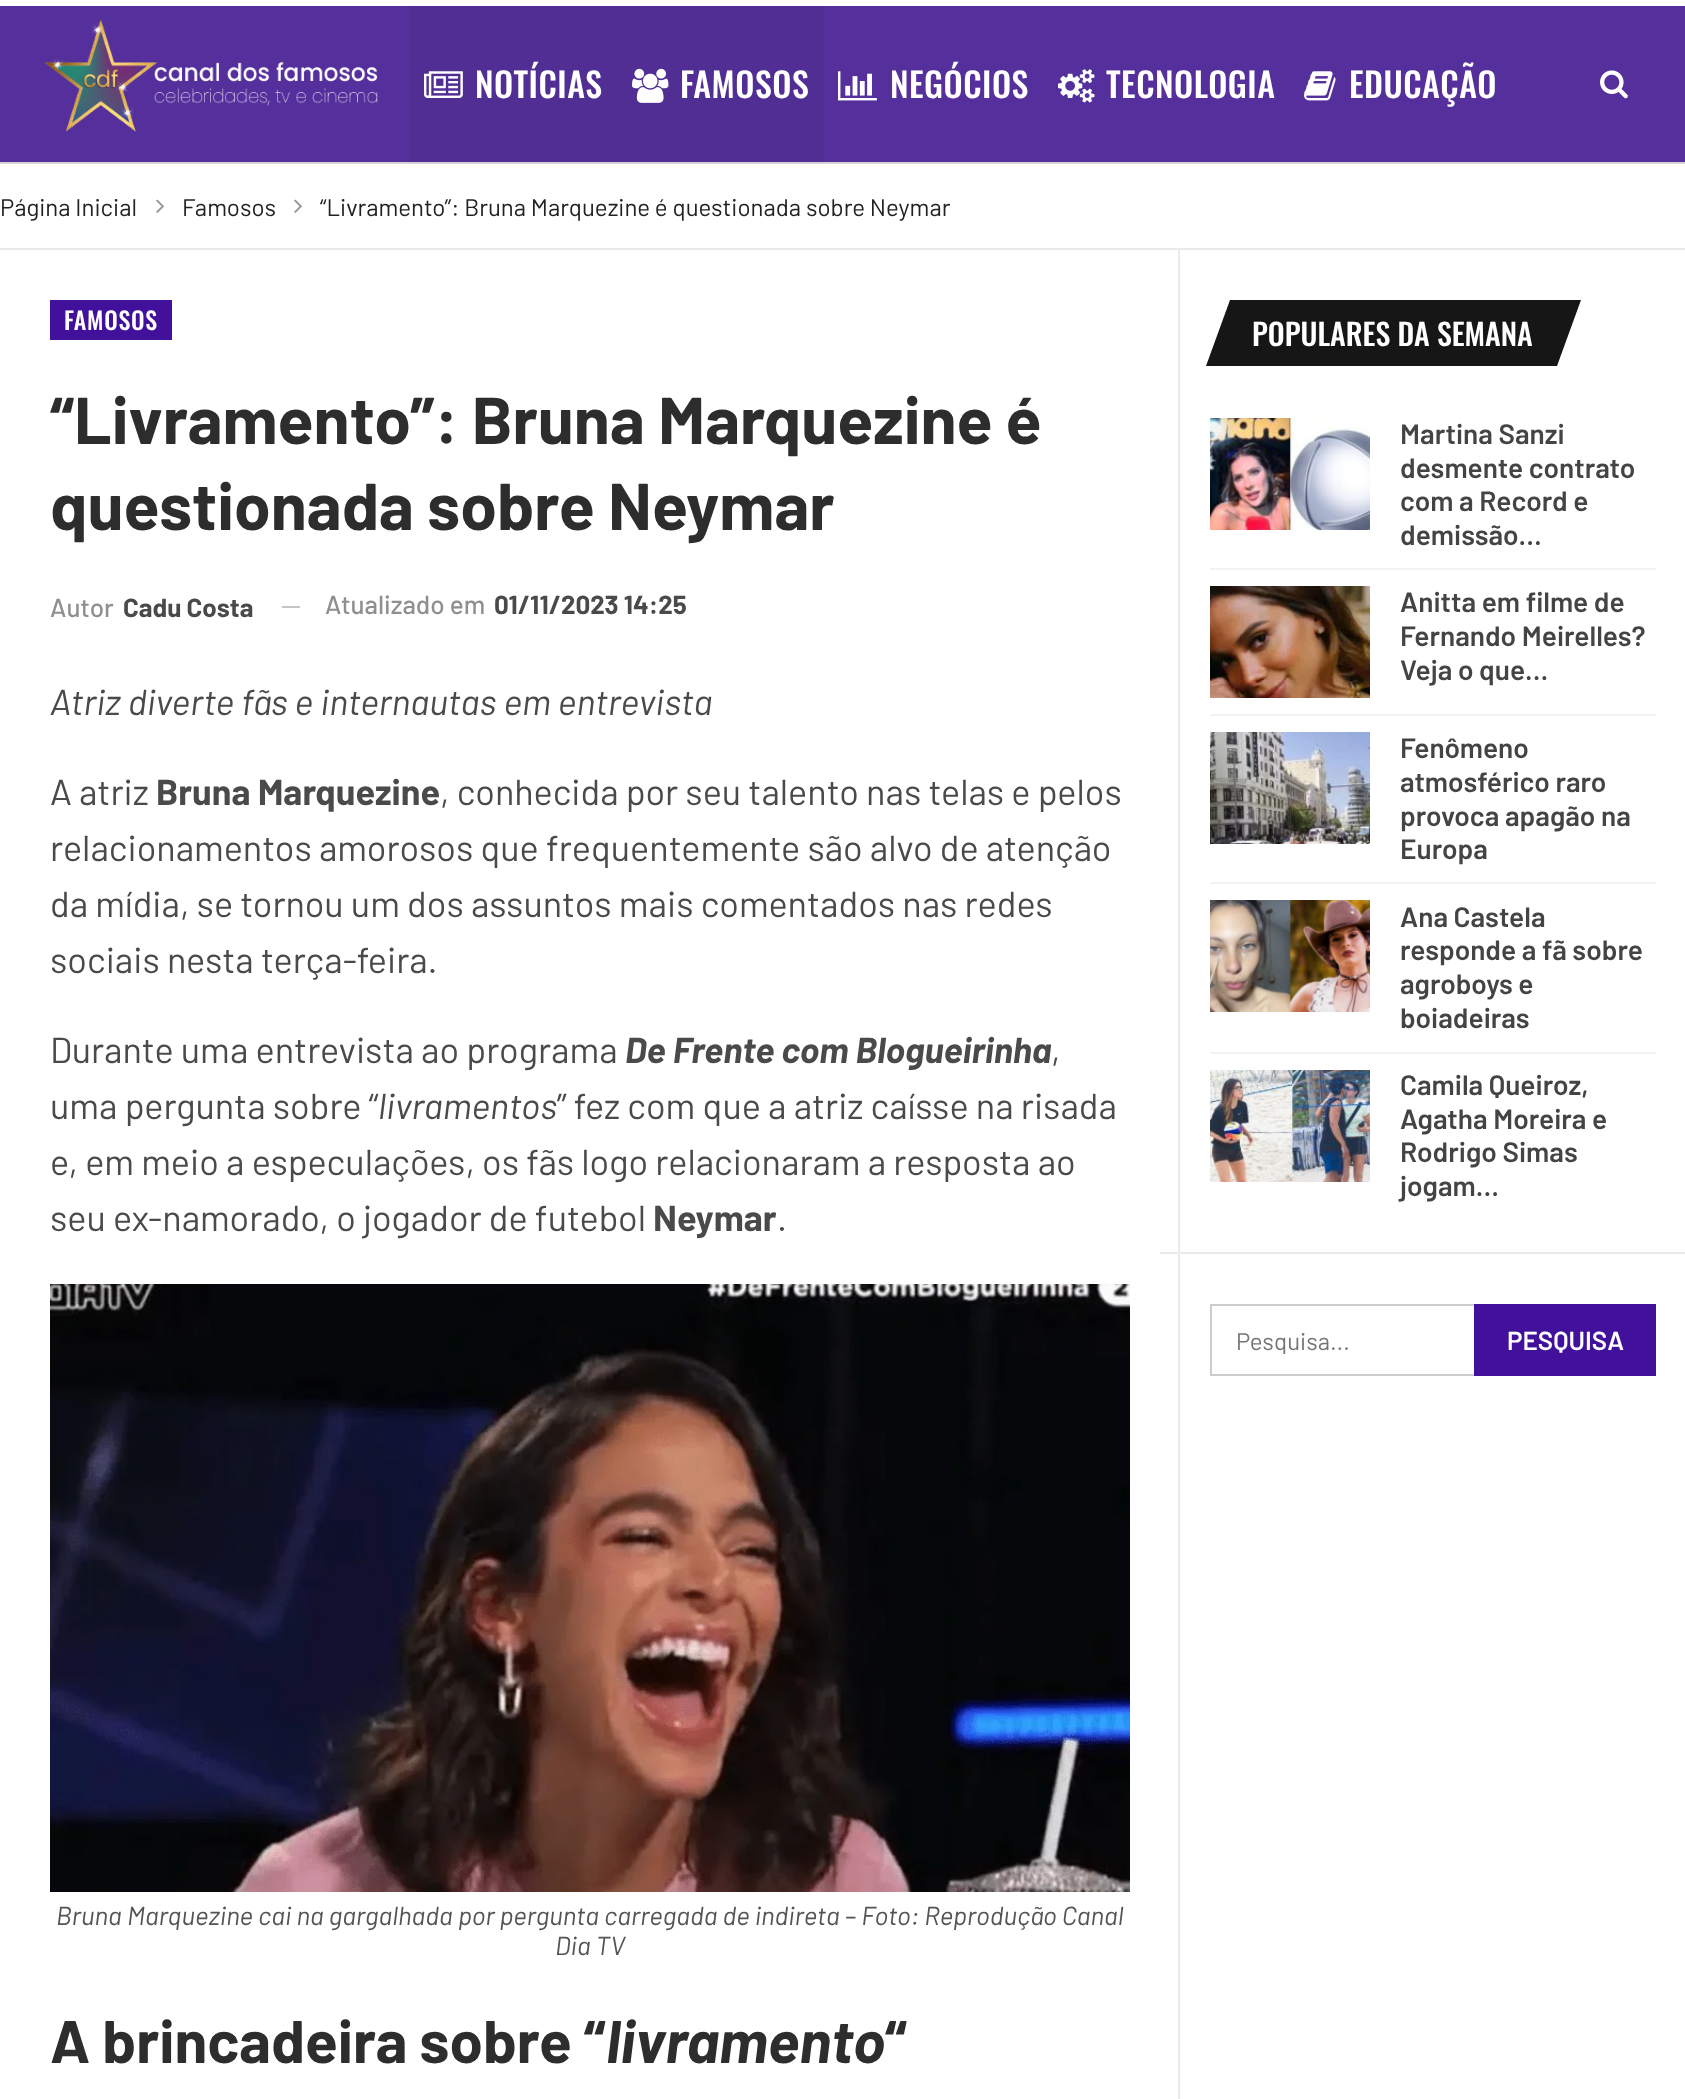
async function draw(canvas) {
  canvas.width = 1685
  canvas.height = 2099
  const ctx = canvas.getContext('2d')
  ctx.miterLimit = 4
  ctx.fontKerning = 'normal'
  async function loadImage(src) {
    const img = new Image()
    img.src = src
    await img.decode()
    return img
  }

  ctx.fillStyle = '#fff'
  ctx.fillRect(0, 0, 1685, 2099)
  ctx.fillStyle = '#d1d1d1'
  ctx.fillRect(0, 162, 1685, 2)
  ctx.fillStyle = '#55309c'
  ctx.fillRect(0, 6, 1685, 156)
  ctx.drawImage(await loadImage('image0.png'), 44, 19, 334, 113)
  ctx.fillStyle = '#512e94'
  ctx.fillRect(410, 6, 414, 156)
  ctx.drawImage(await loadImage('image1.png'), 424, 71, 39, 27)
  ctx.letterSpacing = '0.5px'
  ctx.font = '500 34px Oswald'
  ctx.fillStyle = '#fff'
  ctx.fillText('NOTÍCIAS', 475, 98)
  ctx.drawImage(await loadImage('image2.png'), 632, 68, 37, 35)
  ctx.fillText('FAMOSOS', 680, 98)
  ctx.drawImage(await loadImage('image3.png'), 838, 71, 39, 30)
  ctx.fillText('NEGÓCIOS', 890, 98)
  ctx.drawImage(await loadImage('image4.png'), 1058, 69, 37, 34)
  ctx.fillText('TECNOLOGIA', 1106, 98)
  ctx.drawImage(await loadImage('image5.png'), 1304, 71, 32, 30)
  ctx.fillText('EDUCAÇÃO', 1349, 98)
  ctx.drawImage(await loadImage('image6.png'), 1600, 70, 28, 29)
  ctx.fillStyle = '#eaeaea'
  ctx.fillRect(0, 248, 1685, 2)
  ctx.letterSpacing = '0px'
  ctx.font = '24px Barlow'
  ctx.fillStyle = '#222'
  ctx.fillText('Página Inicial', 0, 216)
  ctx.drawImage(await loadImage('image7.png'), 156, 199, 8, 14)
  ctx.fillText('Famosos', 182, 216)
  ctx.drawImage(await loadImage('image7.png'), 294, 199, 8, 14)
  ctx.fillText('“Livramento”: Bruna Marquezine é questionada sobre Neymar', 320, 216)
  ctx.fillStyle = '#41119b'
  ctx.fillRect(50, 300, 122, 40)
  ctx.letterSpacing = '0.75px'
  ctx.font = '500 24px Oswald'
  ctx.fillStyle = '#fff'
  ctx.fillText('FAMOSOS', 64, 330)
  ctx.letterSpacing = '0px'
  ctx.font = 'bold 66px Barlow'
  ctx.fillStyle = '#2d2d2d'
  ctx.fillText('“Livramento”: Bruna Marquezine é', 50, 444)
  ctx.fillText('questionada sobre Neymar', 50, 530)
  ctx.font = '500 26px Barlow'
  ctx.fillStyle = '#8f8f8f'
  ctx.fillText('Autor', 50, 617)
  ctx.font = 'bold 26px Barlow'
  ctx.fillStyle = '#4a4a4a'
  ctx.fillText('Cadu Costa', 123, 617)
  ctx.fillStyle = '#c4c4c4'
  ctx.fillRect(282, 606, 18, 2)
  ctx.font = '500 26px Barlow'
  ctx.fillStyle = '#8f8f8f'
  ctx.fillText('Atualizado em', 325, 614)
  ctx.font = 'bold 26px Barlow'
  ctx.fillStyle = '#4a4a4a'
  ctx.fillText('01/11/2023 14:25', 494, 614)
  ctx.font = 'italic 36px Barlow'
  ctx.fillText('Atriz diverte fãs e internautas em entrevista', 50, 715)
  ctx.font = '36px Barlow'
  ctx.fillText('A atriz', 50, 805)
  ctx.font = 'bold 36px Barlow'
  ctx.fillText('Bruna Marquezine', 156, 805)
  ctx.font = '36px Barlow'
  ctx.fillText(', conhecida por seu talento nas telas e pelos', 440, 805)
  ctx.fillText('relacionamentos amorosos que frequentemente são alvo de atenção', 50, 861)
  ctx.fillText('da mídia, se tornou um dos assuntos mais comentados nas redes', 50, 917)
  ctx.fillText('sociais nesta terça-feira.', 50, 973)
  ctx.fillText('Durante uma entrevista ao programa', 50, 1063)
  ctx.font = 'italic bold 36px Barlow'
  ctx.fillText('De Frente com Blogueirinha', 625, 1063)
  ctx.font = '36px Barlow'
  ctx.fillText(',', 1051, 1063)
  ctx.fillText('uma pergunta sobre “', 50, 1119)
  ctx.font = 'italic 36px Barlow'
  ctx.fillText('livramentos', 378, 1119)
  ctx.font = '36px Barlow'
  ctx.fillText('” fez com que a atriz caísse na risada', 557, 1119)
  ctx.fillText('e, em meio a especulações, os fãs logo relacionaram a resposta ao', 50, 1175)
  ctx.fillText('seu ex-namorado, o jogador de futebol', 50, 1231)
  ctx.font = 'bold 36px Barlow'
  ctx.fillText('Neymar', 653, 1231)
  ctx.font = '36px Barlow'
  ctx.fillText('.', 777, 1231)
  ctx.drawImage(await loadImage('image8.png'), 50, 1284, 1080, 608)
  ctx.font = 'italic 26px Barlow'
  ctx.fillStyle = '#545454'
  ctx.fillText('Bruna Marquezine cai na gargalhada por pergunta carregada de indireta – Foto: Reprodução Canal', 56, 1925)
  ctx.fillText('Dia TV', 555, 1955)
  ctx.font = 'bold 60px Barlow'
  ctx.fillStyle = '#2d2d2d'
  ctx.fillText('A brincadeira sobre “', 50, 2063)
  ctx.font = 'italic bold 60px Barlow'
  ctx.fillText('livramento', 606, 2063)
  ctx.font = 'bold 60px Barlow'
  ctx.fillText('“', 885, 2063)
  ctx.fillStyle = '#eaeaea'
  ctx.fillRect(1178, 250, 2, 1849)
  ctx.fillStyle = '#161616'
  ctx.fillRect(1236, 300, 345, 66)
  ctx.font = '500 30px Oswald'
  ctx.fillStyle = '#fff'
  ctx.fillText('POPULARES DA SEMANA', 1252, 346)
  ctx.fillStyle = '#161616'
  ctx.beginPath()
  ctx.moveTo(1230, 300)
  ctx.lineTo(1260, 300)
  ctx.lineTo(1236, 366)
  ctx.lineTo(1206, 366)
  ctx.closePath()
  ctx.fill()
  ctx.fillStyle = '#fff'
  ctx.beginPath()
  ctx.moveTo(1581, 300)
  ctx.lineTo(1613, 300)
  ctx.lineTo(1589, 366)
  ctx.lineTo(1557, 366)
  ctx.closePath()
  ctx.fill()
  ctx.fillStyle = '#f2f2f2'
  ctx.fillRect(1210, 568, 446, 2)
  ctx.drawImage(await loadImage('image9.png'), 1210, 418, 160, 112)
  ctx.font = '600 28px Barlow'
  ctx.fillStyle = '#444'
  ctx.fillText('Martina Sanzi', 1400, 444)
  ctx.fillText('desmente contrato', 1400, 478)
  ctx.fillText('com a Record e', 1400, 511)
  ctx.fillText('demissão…', 1400, 545)
  ctx.fillStyle = '#f2f2f2'
  ctx.fillRect(1210, 714, 446, 2)
  ctx.drawImage(await loadImage('image10.png'), 1210, 586, 160, 112)
  ctx.fillStyle = '#444'
  ctx.fillText('Anitta em filme de', 1400, 612)
  ctx.fillText('Fernando Meirelles?', 1400, 646)
  ctx.fillText('Veja o que…', 1400, 680)
  ctx.fillStyle = '#f2f2f2'
  ctx.fillRect(1210, 882, 446, 2)
  ctx.drawImage(await loadImage('image11.png'), 1210, 732, 160, 112)
  ctx.fillStyle = '#444'
  ctx.fillText('Fenômeno', 1400, 758)
  ctx.fillText('atmosférico raro', 1400, 792)
  ctx.fillText('provoca apagão na', 1400, 826)
  ctx.fillText('Europa', 1400, 859)
  ctx.fillStyle = '#f2f2f2'
  ctx.fillRect(1210, 1052, 446, 2)
  ctx.drawImage(await loadImage('image12.png'), 1210, 900, 160, 112)
  ctx.fillStyle = '#444'
  ctx.fillText('Ana Castela', 1400, 927)
  ctx.fillText('responde a fã sobre', 1400, 960)
  ctx.fillText('agroboys e', 1400, 994)
  ctx.fillText('boiadeiras', 1400, 1028)
  ctx.drawImage(await loadImage('image13.png'), 1210, 1070, 160, 112)
  ctx.fillText('Camila Queiroz,', 1400, 1095)
  ctx.fillText('Agatha Moreira e', 1400, 1129)
  ctx.fillText('Rodrigo Simas', 1400, 1162)
  ctx.fillText('jogam…', 1400, 1196)
  ctx.fillStyle = '#eaeaea'
  ctx.fillRect(1160, 1252, 525, 2)
  ctx.strokeStyle = '#ccc'
  ctx.lineWidth = 2
  ctx.strokeRect(1211, 1305, 444, 70)
  ctx.save()
  ctx.beginPath()
  ctx.rect(1236, 1326, 320, 28)
  ctx.clip()
  ctx.font = '24px Barlow'
  ctx.fillStyle = '#757575'
  ctx.fillText('Pesquisa...', 1236, 1350)
  ctx.restore()
  ctx.fillStyle = '#41119b'
  ctx.fillRect(1474, 1304, 182, 72)
  ctx.font = '600 26px Barlow'
  ctx.fillStyle = '#fff'
  ctx.fillText('PESQUISA', 1507, 1350)
}

draw(document.querySelector('canvas'))
